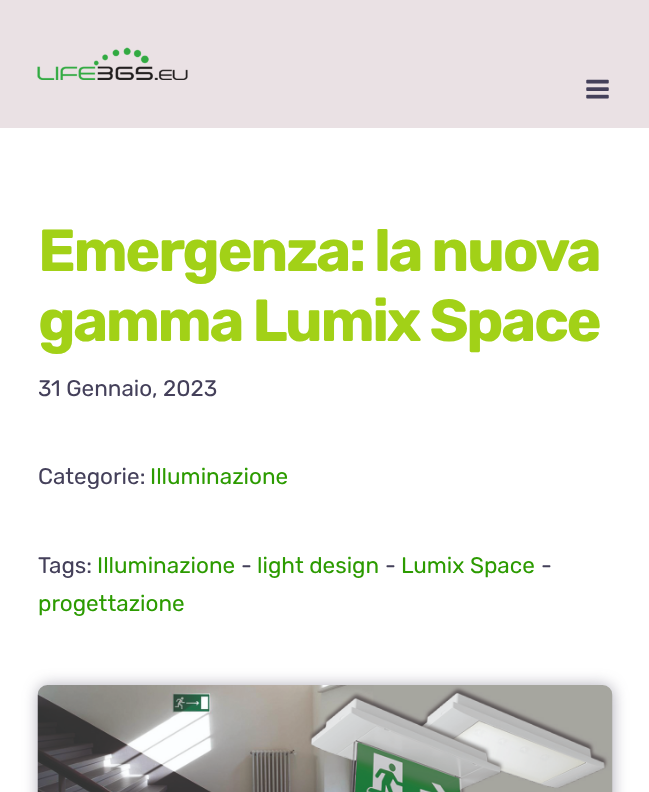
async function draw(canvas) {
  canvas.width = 649
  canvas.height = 792
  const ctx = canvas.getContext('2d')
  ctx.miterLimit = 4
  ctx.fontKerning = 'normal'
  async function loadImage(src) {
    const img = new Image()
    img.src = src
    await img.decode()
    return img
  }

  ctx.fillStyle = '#fff'
  ctx.fillRect(0, 0, 649, 792)
  ctx.fillStyle = '#eae1e4'
  ctx.fillRect(0, 0, 649, 128)
  ctx.drawImage(await loadImage('image0.png'), 37, 47, 151, 33)
  ctx.drawImage(await loadImage('image1.png'), 586, 79, 23, 20)
  ctx.letterSpacing = '-2.4px'
  ctx.font = 'bold 59.25px Rubik'
  ctx.fillStyle = '#a2d117'
  ctx.fillText('Emergenza: la nuova', 38, 271)
  ctx.fillText('gamma Lumix Space', 38, 341)
  ctx.letterSpacing = '0px'
  ctx.font = '22.5px Rubik'
  ctx.fillStyle = '#44405a'
  ctx.fillText('31 Gennaio, 2023', 38, 396)
  ctx.fillText('Categorie:', 38, 484)
  ctx.fillStyle = '#2c9b00'
  ctx.fillText('Illuminazione', 150, 484)
  ctx.fillStyle = '#44405a'
  ctx.fillText('Tags:', 38, 573)
  ctx.fillStyle = '#2c9b00'
  ctx.fillText('Illuminazione', 97, 573)
  ctx.fillStyle = '#44405a'
  ctx.fillText('-', 241, 573)
  ctx.fillStyle = '#2c9b00'
  ctx.fillText('light design', 257, 573)
  ctx.fillStyle = '#44405a'
  ctx.fillText('-', 385, 573)
  ctx.fillStyle = '#2c9b00'
  ctx.fillText('Lumix Space', 401, 573)
  ctx.fillStyle = '#44405a'
  ctx.fillText('-', 541, 573)
  ctx.fillStyle = '#2c9b00'
  ctx.fillText('progettazione', 38, 611)
  ctx.fillStyle = '#44405a6b'
  ctx.filter = 'blur(7.5px)'
  ctx.beginPath()
  ctx.roundRect(38, 685, 575, 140, 10)
  ctx.fill()
  ctx.filter = 'none'
  ctx.drawImage(await loadImage('image2.png'), 37, 685, 576, 107)
}

draw(document.querySelector('canvas'))
